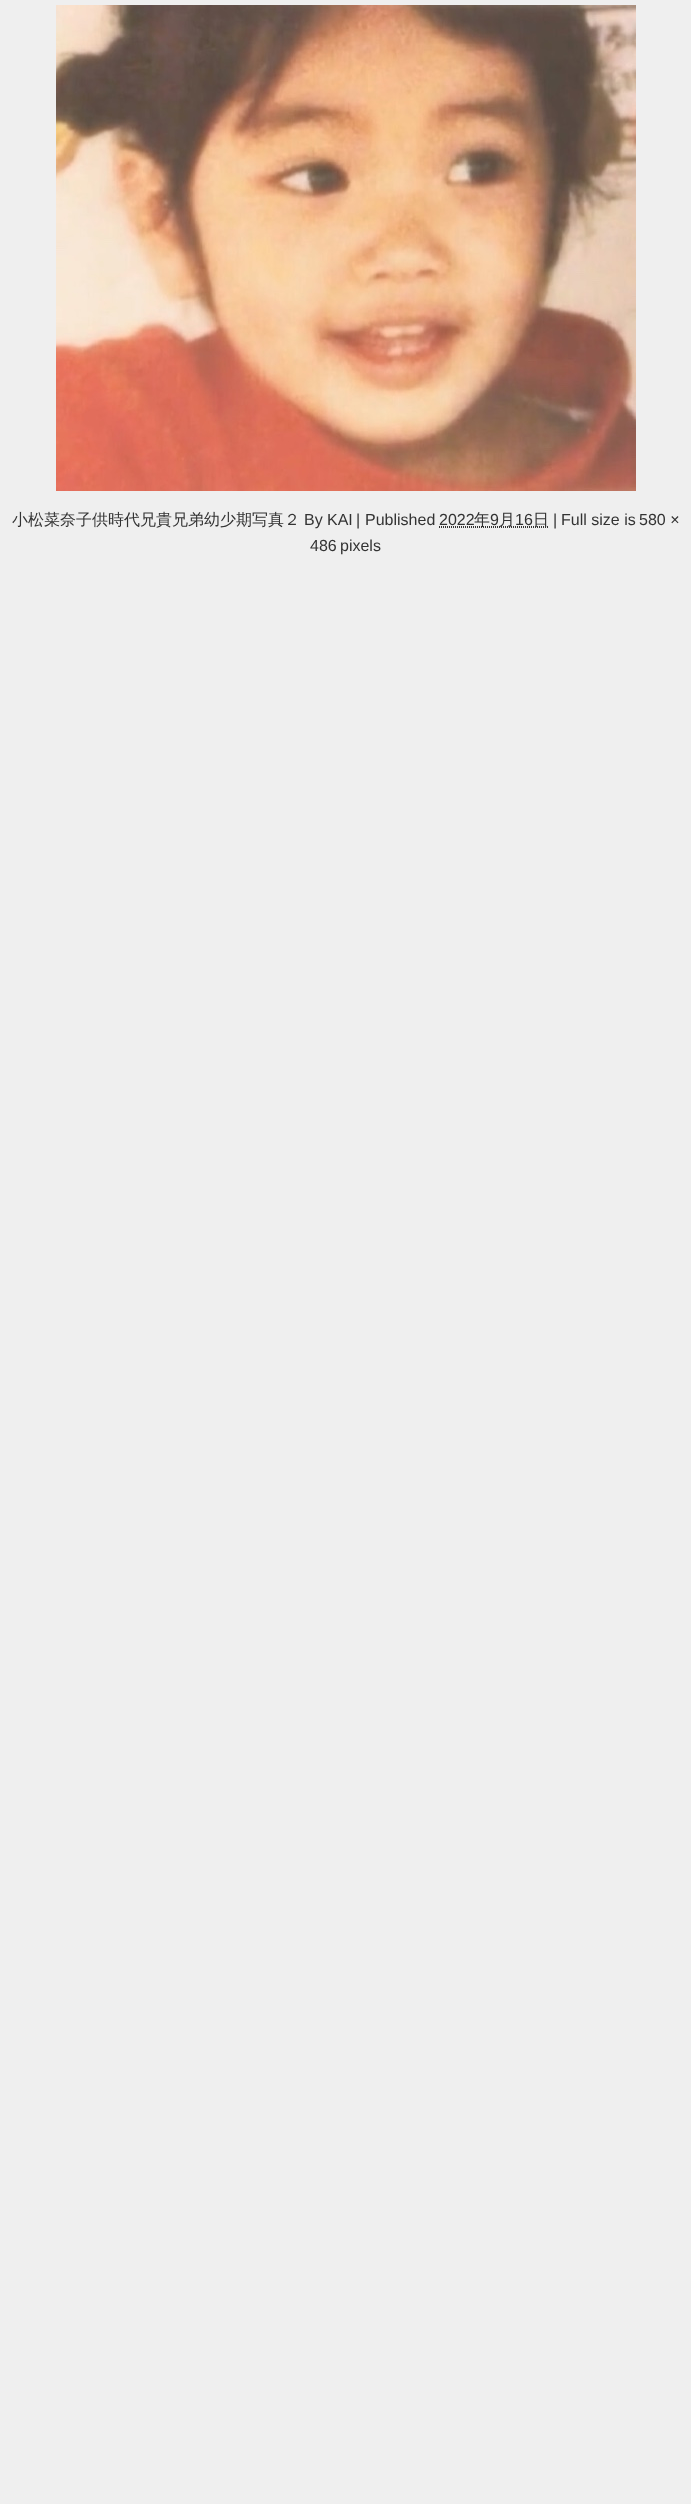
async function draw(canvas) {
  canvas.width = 691
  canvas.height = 2504
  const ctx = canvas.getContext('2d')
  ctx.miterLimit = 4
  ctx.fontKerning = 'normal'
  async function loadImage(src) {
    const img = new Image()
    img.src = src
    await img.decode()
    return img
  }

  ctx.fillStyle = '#efefef'
  ctx.fillRect(0, 0, 691, 2504)
  ctx.drawImage(await loadImage('image0.png'), 56, 5, 580, 486)
  ctx.font = '500 16px WenQuanYi Zen Hei'
  ctx.fillStyle = '#333'
  ctx.fillText('小松菜奈子供時代兄貴兄弟幼少期写真２', 12, 525)
  ctx.font = '16px Liberation Sans'
  ctx.fillText('By', 304, 525)
  ctx.fillText('KAI', 327, 525)
  ctx.fillText('|', 356, 525)
  ctx.fillText('Published', 365, 525)
  ctx.fillText('2022', 439, 525)
  ctx.beginPath()
  ctx.moveTo(439, 526.5)
  ctx.lineTo(549, 526.5)
  ctx.strokeStyle = '#333'
  ctx.setLineDash([1, 1])
  ctx.stroke()
  ctx.font = '500 16px WenQuanYi Zen Hei'
  ctx.fillText('年', 474, 525)
  ctx.font = '16px Liberation Sans'
  ctx.fillText('9', 490, 525)
  ctx.beginPath()
  ctx.moveTo(439, 527.5)
  ctx.lineTo(549, 527.5)
  ctx.stroke()
  ctx.font = '500 16px WenQuanYi Zen Hei'
  ctx.fillText('月', 499, 525)
  ctx.font = '16px Liberation Sans'
  ctx.fillText('16', 515, 525)
  ctx.font = '500 16px WenQuanYi Zen Hei'
  ctx.fillText('日', 533, 525)
  ctx.font = '16px Liberation Sans'
  ctx.fillText('|', 553, 525)
  ctx.fillText('Full size is', 561, 525)
  ctx.fillText('580 ×', 639, 525)
  ctx.fillText('486', 310, 551)
  ctx.fillText('pixels', 340, 551)
}

draw(document.querySelector('canvas'))
